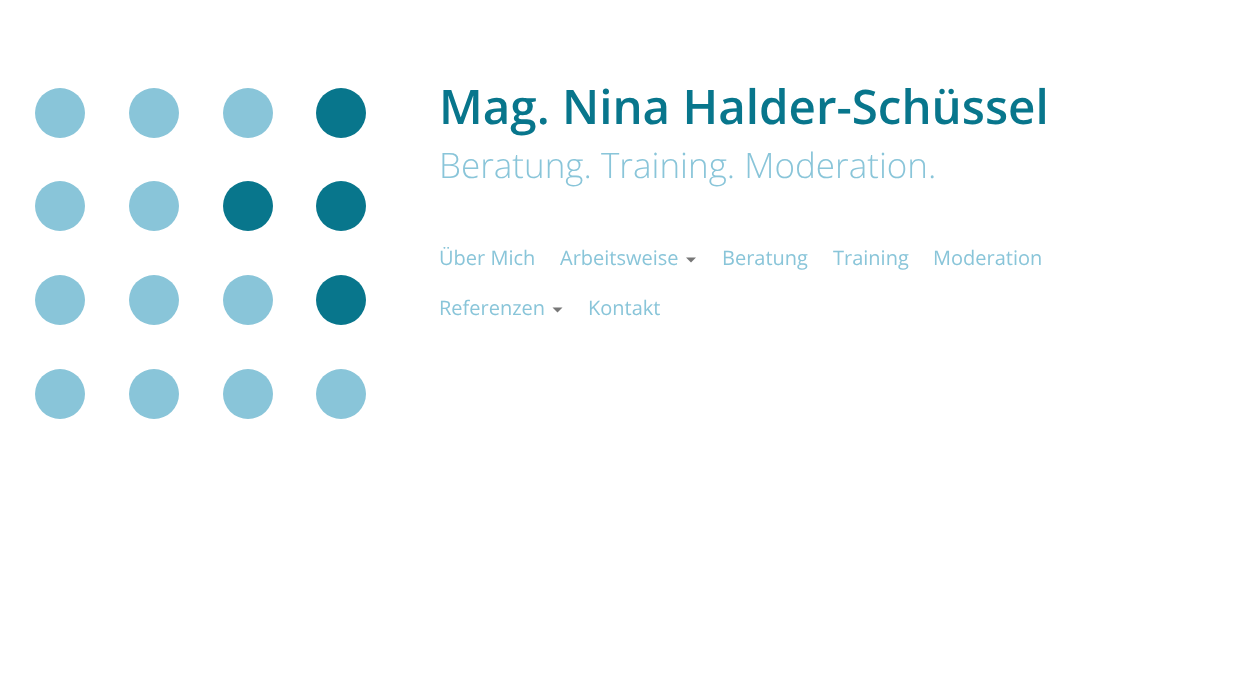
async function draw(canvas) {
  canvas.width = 1244
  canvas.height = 694
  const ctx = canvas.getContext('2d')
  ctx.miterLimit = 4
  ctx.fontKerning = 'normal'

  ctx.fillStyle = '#fff'
  ctx.fillRect(0, 0, 1244, 694)
  ctx.fillStyle = '#89c5d9'
  ctx.beginPath()
  ctx.arc(60, 113, 25, 0, 2 * Math.PI)
  ctx.fill()
  ctx.beginPath()
  ctx.arc(154, 113, 25, 0, 2 * Math.PI)
  ctx.fill()
  ctx.beginPath()
  ctx.arc(248, 113, 25, 0, 2 * Math.PI)
  ctx.fill()
  ctx.fillStyle = '#08768c'
  ctx.beginPath()
  ctx.arc(341, 113, 25, 0, 2 * Math.PI)
  ctx.fill()
  ctx.fillStyle = '#89c5d9'
  ctx.beginPath()
  ctx.arc(60, 206, 25, 0, 2 * Math.PI)
  ctx.fill()
  ctx.beginPath()
  ctx.arc(154, 206, 25, 0, 2 * Math.PI)
  ctx.fill()
  ctx.fillStyle = '#08768c'
  ctx.beginPath()
  ctx.arc(248, 206, 25, 0, 2 * Math.PI)
  ctx.fill()
  ctx.beginPath()
  ctx.arc(341, 206, 25, 0, 2 * Math.PI)
  ctx.fill()
  ctx.fillStyle = '#89c5d9'
  ctx.beginPath()
  ctx.arc(60, 300, 25, 0, 2 * Math.PI)
  ctx.fill()
  ctx.beginPath()
  ctx.arc(154, 300, 25, 0, 2 * Math.PI)
  ctx.fill()
  ctx.beginPath()
  ctx.arc(248, 300, 25, 0, 2 * Math.PI)
  ctx.fill()
  ctx.fillStyle = '#08768c'
  ctx.beginPath()
  ctx.arc(341, 300, 25, 0, 2 * Math.PI)
  ctx.fill()
  ctx.fillStyle = '#89c5d9'
  ctx.beginPath()
  ctx.arc(60, 394, 25, 0, 2 * Math.PI)
  ctx.fill()
  ctx.beginPath()
  ctx.arc(154, 394, 25, 0, 2 * Math.PI)
  ctx.fill()
  ctx.beginPath()
  ctx.arc(248, 394, 25, 0, 2 * Math.PI)
  ctx.fill()
  ctx.beginPath()
  ctx.arc(341, 394, 25, 0, 2 * Math.PI)
  ctx.fill()
  ctx.font = '600 47.5px Open Sans'
  ctx.fillStyle = '#08768c'
  ctx.fillText('Mag. Nina Halder-Schüssel', 439, 124)
  ctx.font = '300 35px Open Sans'
  ctx.fillStyle = '#89c5d9'
  ctx.fillText('Beratung. Training. Moderation.', 439, 178)
  ctx.font = '20px Open Sans'
  ctx.fillText('Über Mich', 439, 265)
  ctx.fillText('Arbeitsweise', 560, 265)
  ctx.fillStyle = '#777'
  ctx.beginPath()
  ctx.moveTo(686, 257.5)
  ctx.lineTo(696, 257.5)
  ctx.lineTo(691, 262.5)
  ctx.closePath()
  ctx.fill()
  ctx.fillStyle = '#89c5d9'
  ctx.fillText('Beratung', 722, 265)
  ctx.fillText('Training', 833, 265)
  ctx.fillText('Moderation', 933, 265)
  ctx.fillText('Referenzen', 439, 315)
  ctx.fillStyle = '#777'
  ctx.beginPath()
  ctx.moveTo(552.5, 307.5)
  ctx.lineTo(562.5, 307.5)
  ctx.lineTo(557.5, 312.5)
  ctx.closePath()
  ctx.fill()
  ctx.fillStyle = '#89c5d9'
  ctx.fillText('Kontakt', 588, 315)
}

draw(document.querySelector('canvas'))
